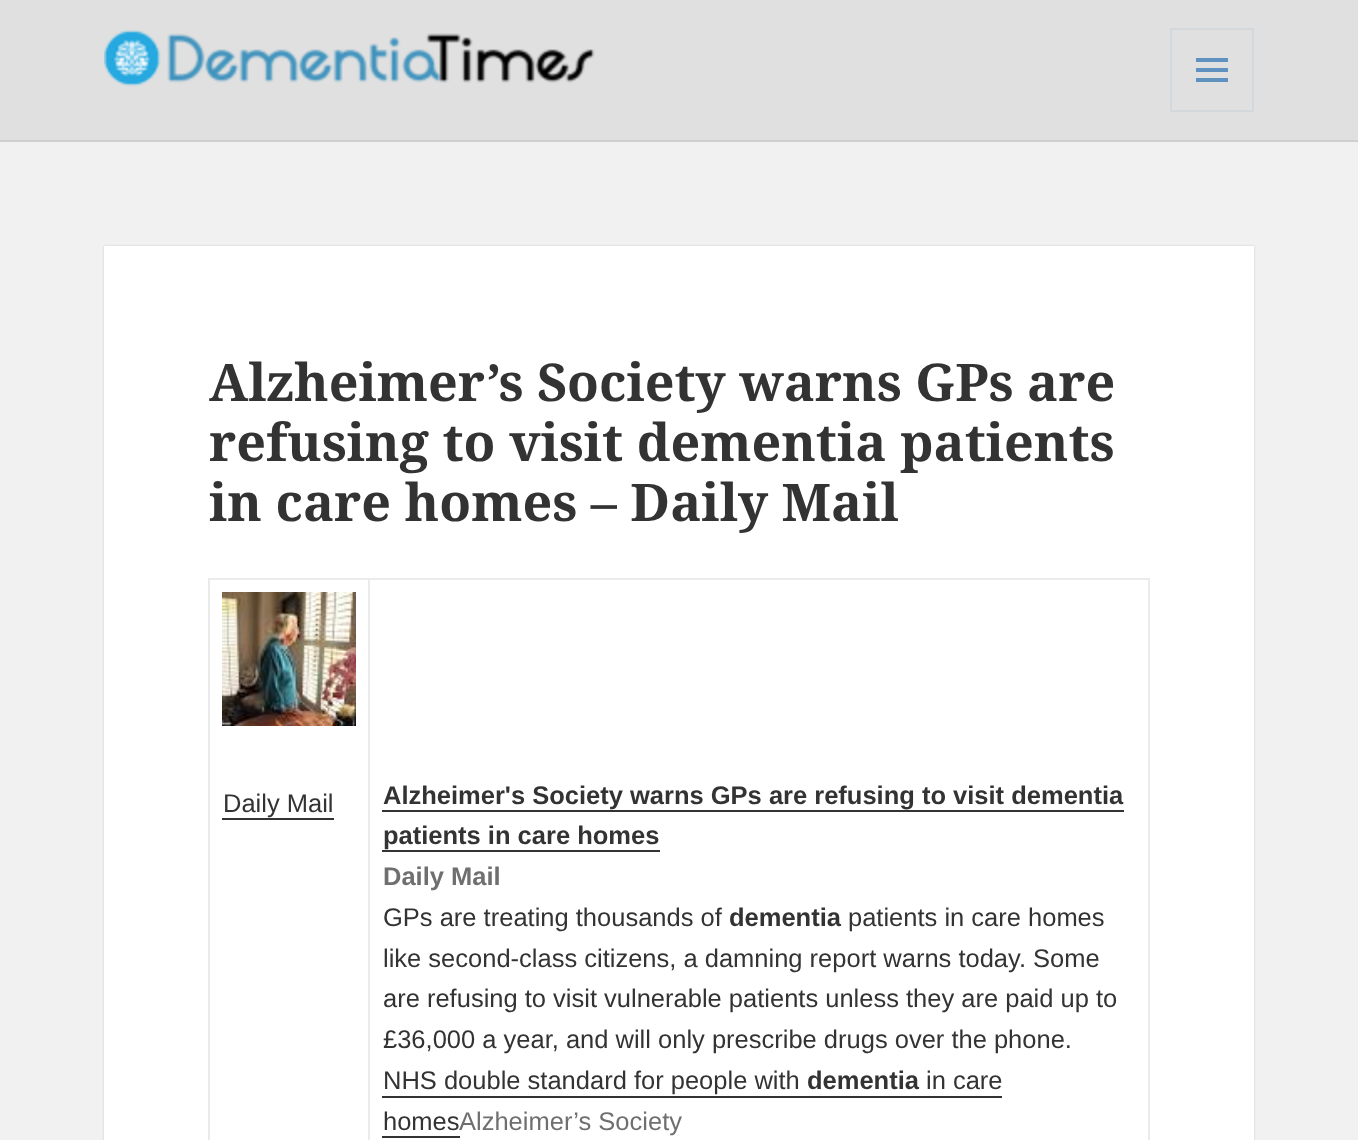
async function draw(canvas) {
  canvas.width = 1358
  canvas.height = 1140
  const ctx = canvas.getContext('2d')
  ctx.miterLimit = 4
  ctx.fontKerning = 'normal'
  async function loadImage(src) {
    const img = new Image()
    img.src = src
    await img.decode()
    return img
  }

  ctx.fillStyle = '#f1f1f1'
  ctx.fillRect(0, 0, 1358, 1140)
  ctx.fillStyle = '#e0e0e0'
  ctx.fillRect(0, 0, 1358, 140)
  ctx.fillStyle = '#cfcfcf'
  ctx.fillRect(0, 140, 1358, 2)
  ctx.drawImage(await loadImage('image0.png'), 104, 29, 491, 58)
  ctx.strokeStyle = '#d3d8dd'
  ctx.lineWidth = 2
  ctx.strokeRect(1171, 29, 82, 82)
  ctx.drawImage(await loadImage('image1.png'), 1196, 58, 32, 24)
  ctx.fillStyle = '#00000026'
  ctx.filter = 'blur(1px)'
  ctx.beginPath()
  ctx.rect(104, 246, 1150, 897)
  ctx.fill()
  ctx.filter = 'none'
  ctx.fillStyle = '#fff'
  ctx.fillRect(104, 246, 1150, 894)
  ctx.font = 'bold 52px Noto Serif'
  ctx.fillStyle = '#333'
  ctx.fillText('Alzheimer’s Society warns GPs are', 209, 401)
  ctx.fillText('refusing to visit dementia patients', 209, 461)
  ctx.fillText('in care homes – Daily Mail', 209, 521)
  ctx.fillStyle = '#ebebeb'
  ctx.beginPath()
  ctx.moveTo(208, 578)
  ctx.lineTo(1150, 578)
  ctx.lineTo(1150, 580)
  ctx.lineTo(210, 580)
  ctx.closePath()
  ctx.fill()
  ctx.fillStyle = '#3333331a'
  ctx.beginPath()
  ctx.moveTo(208, 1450)
  ctx.lineTo(208, 578)
  ctx.lineTo(210, 580)
  ctx.lineTo(210, 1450)
  ctx.closePath()
  ctx.fill()
  ctx.fillStyle = '#ebebeb'
  ctx.beginPath()
  ctx.moveTo(370, 580)
  ctx.lineTo(370, 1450)
  ctx.lineTo(368, 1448)
  ctx.lineTo(368, 580)
  ctx.closePath()
  ctx.fill()
  ctx.fillStyle = '#333'
  ctx.fillRect(222, 818, 112, 2)
  ctx.drawImage(await loadImage('image2.png'), 222, 592, 134, 134)
  ctx.font = '25.5px Liberation Sans'
  ctx.fillText('Daily Mail', 223, 812)
  ctx.fillStyle = '#ebebeb'
  ctx.beginPath()
  ctx.moveTo(1150, 580)
  ctx.lineTo(1150, 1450)
  ctx.lineTo(1148, 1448)
  ctx.lineTo(1148, 580)
  ctx.closePath()
  ctx.fill()
  ctx.font = 'bold 25.5px Liberation Sans'
  ctx.fillStyle = '#333'
  ctx.fillText('Alzheimer\'s Society warns GPs are refusing to visit dementia', 383, 804)
  ctx.fillRect(382, 810, 742, 2)
  ctx.fillText('patients in care homes', 383, 844)
  ctx.fillRect(382, 850, 278, 2)
  ctx.fillStyle = '#6f6f6f'
  ctx.fillText('Daily Mail', 383, 885)
  ctx.font = '25.5px Liberation Sans'
  ctx.fillStyle = '#333'
  ctx.fillText('GPs are treating thousands of', 383, 926)
  ctx.font = 'bold 25.5px Liberation Sans'
  ctx.fillText('dementia', 729, 926)
  ctx.font = '25.5px Liberation Sans'
  ctx.fillText('patients in care homes', 848, 926)
  ctx.fillText('like second-class citizens, a damning report warns today. Some', 383, 967)
  ctx.fillText('are refusing to visit vulnerable patients unless they are paid up to', 383, 1007)
  ctx.fillText('£36,000 a year, and will only prescribe drugs over the phone.', 383, 1048)
  ctx.fillText('NHS double standard for people with', 383, 1089)
  ctx.fillRect(382, 1096, 620, 2)
  ctx.font = 'bold 25.5px Liberation Sans'
  ctx.fillText('dementia', 807, 1089)
  ctx.font = '25.5px Liberation Sans'
  ctx.fillText('in care', 926, 1089)
  ctx.fillText('homes', 383, 1130)
  ctx.fillStyle = '#6f6f6f'
  ctx.fillText('Alzheimer’s Society', 459, 1130)
  ctx.fillStyle = '#333'
  ctx.fillRect(382, 1136, 78, 2)
}

draw(document.querySelector('canvas'))
